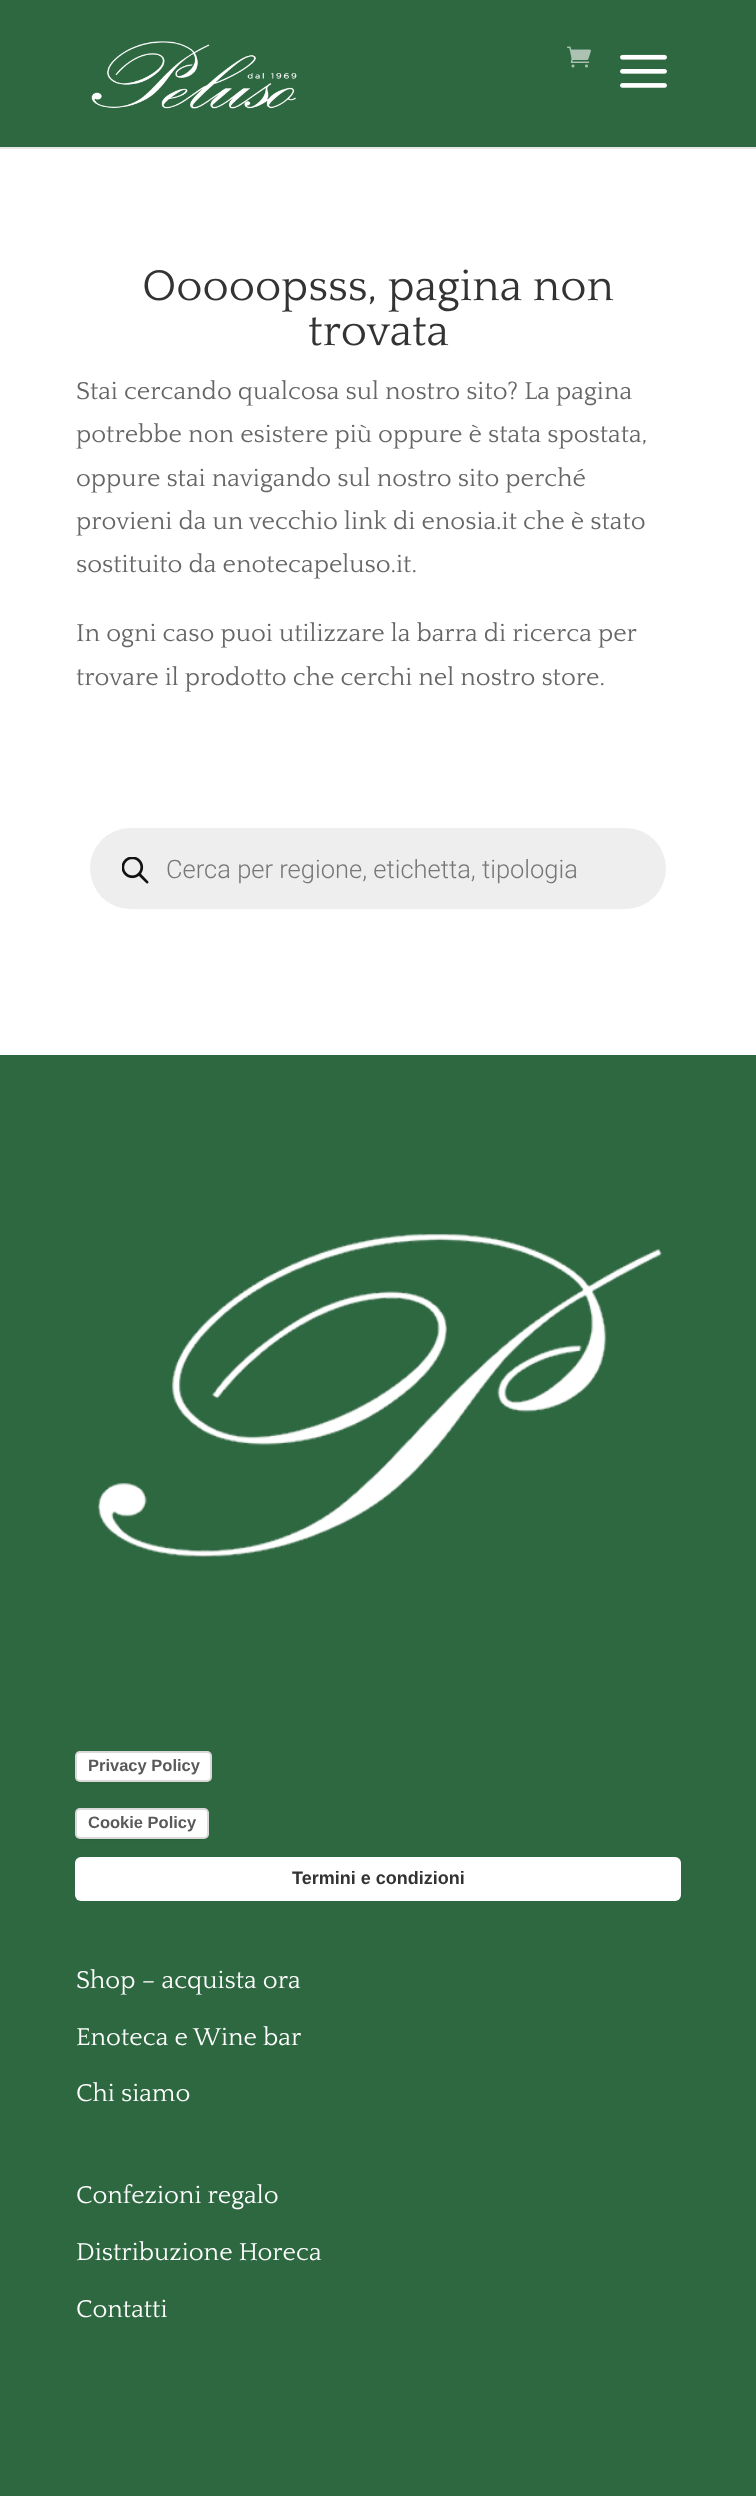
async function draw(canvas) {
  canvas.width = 756
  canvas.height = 2496
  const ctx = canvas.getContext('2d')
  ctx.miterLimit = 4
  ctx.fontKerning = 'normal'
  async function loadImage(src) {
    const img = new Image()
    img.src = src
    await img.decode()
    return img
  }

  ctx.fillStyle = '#fff'
  ctx.fillRect(0, 0, 756, 2496)
  ctx.fillStyle = '#e6e6e6'
  ctx.fillRect(0, 147, 756, 2)
  ctx.fillStyle = '#2d6840'
  ctx.fillRect(0, 0, 756, 147)
  ctx.drawImage(await loadImage('image0.png'), 91, 41, 206, 68)
  ctx.drawImage(await loadImage('image1.png'), 567, 46, 24, 22)
  ctx.drawImage(await loadImage('image2.png'), 620, 54, 47, 34)
  ctx.font = '45px Quattrocento'
  ctx.fillStyle = '#333'
  ctx.fillText('Ooooopsss, pagina non', 142, 300)
  ctx.fillText('trovata', 308, 345)
  ctx.font = '25.5px Quattrocento'
  ctx.fillStyle = '#666'
  ctx.fillText('Stai cercando qualcosa sul nostro sito? La pagina', 76, 399)
  ctx.fillText('potrebbe non esistere più oppure è stata spostata,', 76, 442)
  ctx.fillText('oppure stai navigando sul nostro sito perché', 76, 486)
  ctx.fillText('provieni da un vecchio link di enosia.it che è stato', 76, 529)
  ctx.fillText('sostituito da enotecapeluso.it.', 76, 572)
  ctx.fillText('In ogni caso puoi utilizzare la barra di ricerca per', 76, 641)
  ctx.fillText('trovare il prodotto che cerchi nel nostro store.', 76, 685)
  ctx.fillStyle = '#eee'
  ctx.beginPath()
  ctx.roundRect(90, 828, 576, 81, 40.5)
  ctx.fill()
  ctx.drawImage(await loadImage('image3.png'), 122, 857, 27, 27)
  ctx.font = '300 25.5px Roboto'
  ctx.fillStyle = '#777'
  ctx.fillText('Cerca per regione, etichetta, tipologia', 166, 878)
  ctx.fillStyle = '#2d6840'
  ctx.fillRect(0, 1055, 756, 1441)
  ctx.drawImage(await loadImage('image4.png'), 97, 1233, 566, 325)
  ctx.fillStyle = '#00000026'
  ctx.filter = 'blur(1px)'
  ctx.beginPath()
  ctx.roundRect(77, 1754, 133, 28, 3)
  ctx.fill()
  ctx.filter = 'none'
  ctx.fillStyle = '#fff'
  ctx.beginPath()
  ctx.roundRect(75, 1751, 137, 31, 5)
  ctx.fill()
  ctx.beginPath()
  ctx.roundRect(76, 1752, 135, 29, 4)
  ctx.strokeStyle = '#00000026'
  ctx.lineWidth = 2
  ctx.stroke()
  ctx.font = 'bold 16.5px Liberation Sans'
  ctx.fillStyle = '#595959'
  ctx.fillText('Privacy Policy', 88, 1771)
  ctx.fillStyle = '#00000026'
  ctx.filter = 'blur(1px)'
  ctx.beginPath()
  ctx.roundRect(77, 1811, 130, 28, 3)
  ctx.fill()
  ctx.filter = 'none'
  ctx.fillStyle = '#fff'
  ctx.beginPath()
  ctx.roundRect(75, 1808, 134, 31, 5)
  ctx.fill()
  ctx.beginPath()
  ctx.roundRect(76, 1809, 132, 29, 4)
  ctx.stroke()
  ctx.fillStyle = '#595959'
  ctx.fillText('Cookie Policy', 88, 1828)
  ctx.fillStyle = '#fff'
  ctx.beginPath()
  ctx.roundRect(75, 1857, 606, 44, 6)
  ctx.fill()
  ctx.font = 'bold 18px Liberation Sans'
  ctx.fillStyle = '#333'
  ctx.fillText('Termini e condizioni', 292, 1884)
  ctx.font = '25.5px Quattrocento'
  ctx.fillStyle = '#fff'
  ctx.fillText('Shop – acquista ora', 76, 1988)
  ctx.fillText('Enoteca e Wine bar', 76, 2045)
  ctx.fillText('Chi siamo', 76, 2101)
  ctx.fillText('Confezioni regalo', 76, 2203)
  ctx.fillText('Distribuzione Horeca', 76, 2260)
  ctx.fillText('Contatti', 76, 2317)
}

draw(document.querySelector('canvas'))
